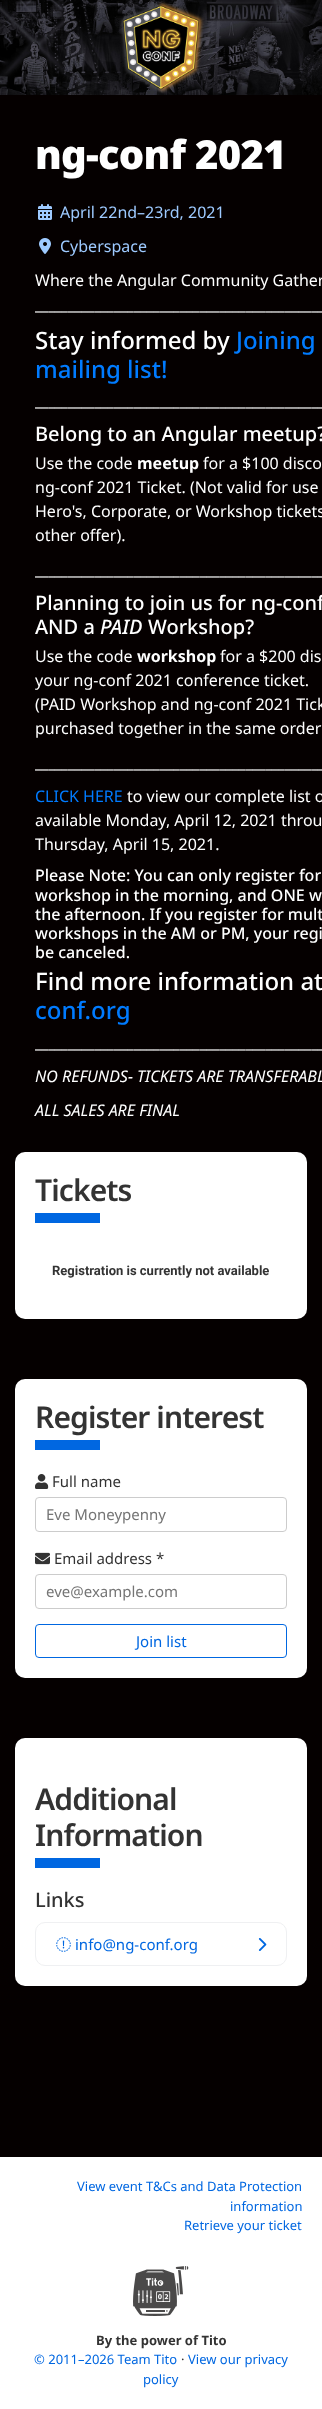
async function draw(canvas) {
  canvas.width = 322
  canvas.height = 2409
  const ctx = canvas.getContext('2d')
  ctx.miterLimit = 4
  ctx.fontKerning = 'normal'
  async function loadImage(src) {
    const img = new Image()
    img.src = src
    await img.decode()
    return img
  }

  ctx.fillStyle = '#050000'
  ctx.fillRect(0, 0, 322, 2409)
  ctx.drawImage(await loadImage('image0.png'), 0, 0, 322, 95)
  ctx.letterSpacing = '-0.75px'
  ctx.font = '900 40px Noto Sans'
  ctx.fillStyle = '#fff'
  ctx.fillText('ng-conf 2021', 35, 169)
  ctx.drawImage(await loadImage('image1.png'), 38, 204, 14, 16)
  ctx.letterSpacing = '0px'
  ctx.font = '16px Noto Sans'
  ctx.fillStyle = '#9ecaff'
  ctx.fillText('April 22nd–23rd, 2021', 60, 218)
  ctx.drawImage(await loadImage('image2.png'), 39, 238, 12, 16)
  ctx.fillText('Cyberspace', 60, 252)
  ctx.fillStyle = '#fff'
  ctx.fillText('Where the Angular Community Gather', 35, 286)
  ctx.font = 'bold 16px Noto Sans'
  ctx.fillText('____________________________________________', 35, 310)
  ctx.font = '500 24px Noto Sans'
  ctx.fillText('Stay informed by', 35, 349)
  ctx.fillStyle = '#007bff'
  ctx.fillText('Joining', 236, 349)
  ctx.fillText('mailing list!', 35, 378)
  ctx.font = 'bold 16px Noto Sans'
  ctx.fillStyle = '#fff'
  ctx.fillText('____________________________________________', 35, 406)
  ctx.font = '500 20px Noto Sans'
  ctx.fillText('Belong to an Angular meetup?', 35, 441)
  ctx.font = '16px Noto Sans'
  ctx.fillText('Use the code', 35, 469)
  ctx.font = 'bold 16px Noto Sans'
  ctx.fillText('meetup', 137, 469)
  ctx.font = '16px Noto Sans'
  ctx.fillText('for a $100 disco', 203, 469)
  ctx.fillText('ng-conf 2021 Ticket. (Not valid for use', 35, 493)
  ctx.fillText('Hero\'s, Corporate, or Workshop tickets', 35, 517)
  ctx.fillText('other offer).', 35, 541)
  ctx.font = 'bold 16px Noto Sans'
  ctx.fillText('____________________________________________', 35, 575)
  ctx.font = '500 20px Noto Sans'
  ctx.fillText('Planning to join us for ng-conf', 35, 610)
  ctx.fillText('AND a', 35, 634)
  ctx.font = 'italic 500 20px Noto Sans'
  ctx.fillText('PAID', 100, 634)
  ctx.font = '500 20px Noto Sans'
  ctx.fillText('Workshop?', 148, 634)
  ctx.font = '16px Noto Sans'
  ctx.fillText('Use the code', 35, 662)
  ctx.font = 'bold 16px Noto Sans'
  ctx.fillText('workshop', 137, 662)
  ctx.font = '16px Noto Sans'
  ctx.fillText('for a $200 dis', 220, 662)
  ctx.fillText('your ng-conf 2021 conference ticket.', 35, 686)
  ctx.fillText('(PAID Workshop and ng-conf 2021 Tick', 35, 710)
  ctx.fillText('purchased together in the same order', 35, 734)
  ctx.font = 'bold 16px Noto Sans'
  ctx.fillText('____________________________________________', 35, 768)
  ctx.font = '16px Noto Sans'
  ctx.fillStyle = '#007bff'
  ctx.fillText('CLICK HERE', 35, 802)
  ctx.fillStyle = '#fff'
  ctx.fillText('to view our complete list o', 127, 802)
  ctx.fillText('available Monday, April 12, 2021 throu', 35, 826)
  ctx.fillText('Thursday, April 15, 2021.', 35, 850)
  ctx.font = '500 16px Noto Sans'
  ctx.fillText('Please Note: You can only register for', 35, 881)
  ctx.fillText('workshop in the morning, and ONE w', 35, 901)
  ctx.fillText('the afternoon. If you register for mult', 35, 920)
  ctx.fillText('workshops in the AM or PM, your regi', 35, 939)
  ctx.fillText('be canceled.', 35, 958)
  ctx.font = '500 24px Noto Sans'
  ctx.fillText('Find more information at', 35, 990)
  ctx.fillStyle = '#007bff'
  ctx.fillText('conf.org', 35, 1019)
  ctx.font = 'bold 16px Noto Sans'
  ctx.fillStyle = '#fff'
  ctx.fillText('____________________________________________', 35, 1048)
  ctx.font = 'italic 16px Noto Sans'
  ctx.fillText('NO REFUNDS- TICKETS ARE TRANSFERABL', 35, 1082)
  ctx.fillText('ALL SALES ARE FINAL', 35, 1116)
  ctx.beginPath()
  ctx.roundRect(15, 1152, 292, 167, 10)
  ctx.fill()
  ctx.letterSpacing = '-0.9px'
  ctx.font = '600 30px Noto Sans'
  ctx.fillStyle = '#333'
  ctx.fillText('Tickets', 35, 1201)
  ctx.fillStyle = '#0067e1'
  ctx.fillRect(35, 1213, 65, 10)
  ctx.letterSpacing = '0px'
  ctx.font = 'bold 13px Roboto'
  ctx.fillStyle = '#333'
  ctx.fillText('Registration is currently not available', 52, 1275)
  ctx.fillStyle = '#fff'
  ctx.beginPath()
  ctx.roundRect(15, 1379, 292, 299, 10)
  ctx.fill()
  ctx.letterSpacing = '-0.9px'
  ctx.font = '600 30px Noto Sans'
  ctx.fillStyle = '#333'
  ctx.fillText('Register interest', 35, 1428)
  ctx.fillStyle = '#0067e1'
  ctx.fillRect(35, 1440, 65, 10)
  ctx.drawImage(await loadImage('image3.png'), 35, 1474, 14, 15)
  ctx.letterSpacing = '0px'
  ctx.font = '15px Noto Sans'
  ctx.fillStyle = '#333'
  ctx.fillText('Full name', 52, 1487)
  ctx.beginPath()
  ctx.roundRect(35.5, 1497.5, 251, 34, 3.5)
  ctx.strokeStyle = '#ccc'
  ctx.stroke()
  ctx.fillStyle = '#757575'
  ctx.fillText('Eve Moneypenny', 46, 1520)
  ctx.drawImage(await loadImage('image4.png'), 35, 1552, 15, 13)
  ctx.fillStyle = '#333'
  ctx.fillText('Email address *', 54, 1564)
  ctx.beginPath()
  ctx.roundRect(35.5, 1574.5, 251, 34, 3.5)
  ctx.stroke()
  ctx.fillStyle = '#757575'
  ctx.fillText('eve@example.com', 46, 1597)
  ctx.beginPath()
  ctx.roundRect(35.5, 1624.5, 251, 33, 3.5)
  ctx.strokeStyle = '#0067e1'
  ctx.stroke()
  ctx.fillStyle = '#0067e1'
  ctx.fillText('Join list', 136, 1647)
  ctx.fillStyle = '#fff'
  ctx.beginPath()
  ctx.roundRect(15, 1738, 292, 248, 10)
  ctx.fill()
  ctx.letterSpacing = '-0.9px'
  ctx.font = '600 30px Noto Sans'
  ctx.fillStyle = '#333'
  ctx.fillText('Additional', 35, 1810)
  ctx.fillText('Information', 35, 1846)
  ctx.fillStyle = '#0067e1'
  ctx.fillRect(35, 1858, 65, 10)
  ctx.letterSpacing = '0px'
  ctx.font = '500 20px Noto Sans'
  ctx.fillStyle = '#333'
  ctx.fillText('Links', 35, 1907)
  ctx.beginPath()
  ctx.roundRect(35.5, 1922.5, 251, 43, 9.5)
  ctx.strokeStyle = '#eff0f2'
  ctx.stroke()
  ctx.drawImage(await loadImage('image5.png'), 56, 1937, 15, 15)
  ctx.font = '15px Noto Sans'
  ctx.fillStyle = '#0067e1'
  ctx.fillText('info@ng-conf.org', 75, 1950)
  ctx.drawImage(await loadImage('image6.png'), 258, 1938, 9, 13)
  ctx.fillStyle = '#fff'
  ctx.fillRect(0, 2157, 322, 252)
  ctx.font = '13px Noto Sans'
  ctx.fillStyle = '#0067e1'
  ctx.fillText('View event T&Cs and Data Protection', 77, 2191)
  ctx.fillText('information', 230, 2211)
  ctx.fillText('Retrieve your ticket', 184, 2230)
  ctx.drawImage(await loadImage('image7.png'), 133, 2266, 56, 50)
  ctx.font = 'bold 13px Noto Sans'
  ctx.fillStyle = '#333'
  ctx.fillText('By the power of Tito', 96, 2345)
  ctx.font = '13px Noto Sans'
  ctx.fillStyle = '#0067e1'
  ctx.fillText('© 2011–2026 Team Tito', 34, 2364)
  ctx.fillStyle = '#333'
  ctx.fillText('·', 181, 2364)
  ctx.fillStyle = '#0067e1'
  ctx.fillText('View our privacy', 188, 2364)
  ctx.fillText('policy', 143, 2384)
}

draw(document.querySelector('canvas'))
